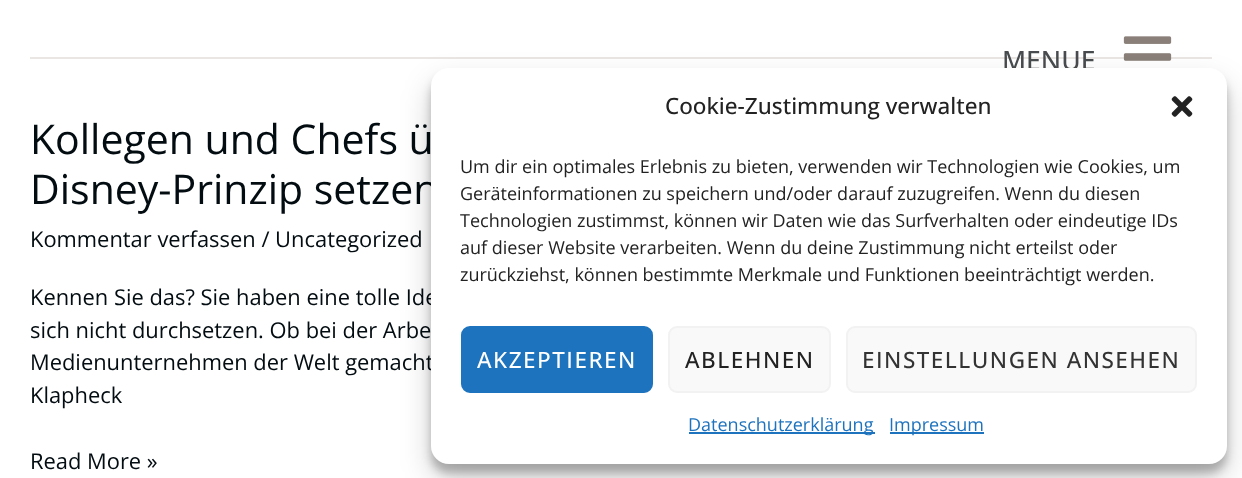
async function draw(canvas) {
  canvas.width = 1242
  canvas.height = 478
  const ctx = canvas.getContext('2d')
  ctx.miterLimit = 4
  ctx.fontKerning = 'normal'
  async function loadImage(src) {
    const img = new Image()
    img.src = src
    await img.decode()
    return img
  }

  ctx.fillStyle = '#fff'
  ctx.fillRect(0, 0, 1242, 478)
  ctx.fillStyle = '#eae6e3'
  ctx.fillRect(30, 57, 1182, 2)
  ctx.font = '500 26.5px Open Sans'
  ctx.fillStyle = '#494c4f'
  ctx.fillText('MENUE', 1002, 70)
  ctx.drawImage(await loadImage('image0.png'), 1123, 36, 49, 25)
  ctx.font = '41px Open Sans'
  ctx.fillStyle = '#030c11'
  ctx.fillText('Kollegen und Chefs ü', 30, 154)
  ctx.fillText('Disney-Prinzip setzen', 30, 204)
  ctx.font = '21.9px Open Sans'
  ctx.fillText('Kommentar verfassen / Uncategorized', 30, 247)
  ctx.fillText('Kennen Sie das? Sie haben eine tolle Ide', 30, 305)
  ctx.fillText('sich nicht durchsetzen. Ob bei der Arbe', 30, 338)
  ctx.fillText('Medienunternehmen der Welt gemacht', 30, 370)
  ctx.fillText('Klapheck', 30, 403)
  ctx.fillText('Read More »', 30, 469)
  ctx.fillStyle = '#0000003b'
  ctx.filter = 'blur(4.5px)'
  ctx.beginPath()
  ctx.roundRect(431, 77, 796, 396, 18)
  ctx.fill()
  ctx.filter = 'none'
  ctx.fillStyle = '#00000030'
  ctx.filter = 'blur(15px)'
  ctx.beginPath()
  ctx.roundRect(431, 83, 796, 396, 18)
  ctx.fill()
  ctx.filter = 'none'
  ctx.fillStyle = '#fff'
  ctx.beginPath()
  ctx.roundRect(431, 68, 796, 396, 18)
  ctx.fill()
  ctx.font = '500 22.5px Open Sans'
  ctx.fillStyle = '#222'
  ctx.fillText('Cookie-Zustimmung verwalten', 665, 114)
  ctx.drawImage(await loadImage('image1.png'), 1171, 96, 22, 21)
  ctx.font = '18px Open Sans'
  ctx.fillText('Um dir ein optimales Erlebnis zu bieten, verwenden wir Technologien wie Cookies, um', 460, 173)
  ctx.fillText('Geräteinformationen zu speichern und/oder darauf zuzugreifen. Wenn du diesen', 460, 200)
  ctx.fillText('Technologien zustimmst, können wir Daten wie das Surfverhalten oder eindeutige IDs', 460, 227)
  ctx.fillText('auf dieser Website verarbeiten. Wenn du deine Zustimmung nicht erteilst oder', 460, 254)
  ctx.fillText('zurückziehst, können bestimmte Merkmale und Funktionen beeinträchtigt werden.', 460, 281)
  ctx.fillStyle = '#1e73be'
  ctx.beginPath()
  ctx.roundRect(462, 327, 190, 65, 8)
  ctx.fill()
  ctx.strokeStyle = '#1e73be'
  ctx.lineWidth = 2
  ctx.stroke()
  ctx.letterSpacing = '1.5px'
  ctx.font = '500 22.5px Open Sans'
  ctx.fillStyle = '#fff'
  ctx.fillText('AKZEPTIEREN', 477, 368)
  ctx.fillStyle = '#f9f9f9'
  ctx.beginPath()
  ctx.roundRect(669, 327, 161, 65, 8)
  ctx.fill()
  ctx.strokeStyle = '#f2f2f2'
  ctx.stroke()
  ctx.fillStyle = '#222'
  ctx.fillText('ABLEHNEN', 685, 368)
  ctx.fillStyle = '#f9f9f9'
  ctx.beginPath()
  ctx.roundRect(847, 327, 349, 65, 8)
  ctx.fill()
  ctx.stroke()
  ctx.fillStyle = '#333'
  ctx.fillText('EINSTELLUNGEN ANSEHEN', 862, 368)
  ctx.fillStyle = '#1e73be'
  ctx.fillRect(689, 432, 186, 2)
  ctx.letterSpacing = '0px'
  ctx.font = '18px Open Sans'
  ctx.fillText('Datenschutzerklärung', 688, 431)
  ctx.fillRect(890, 432, 94, 2)
  ctx.fillText('Impressum', 889, 431)
}

draw(document.querySelector('canvas'))
